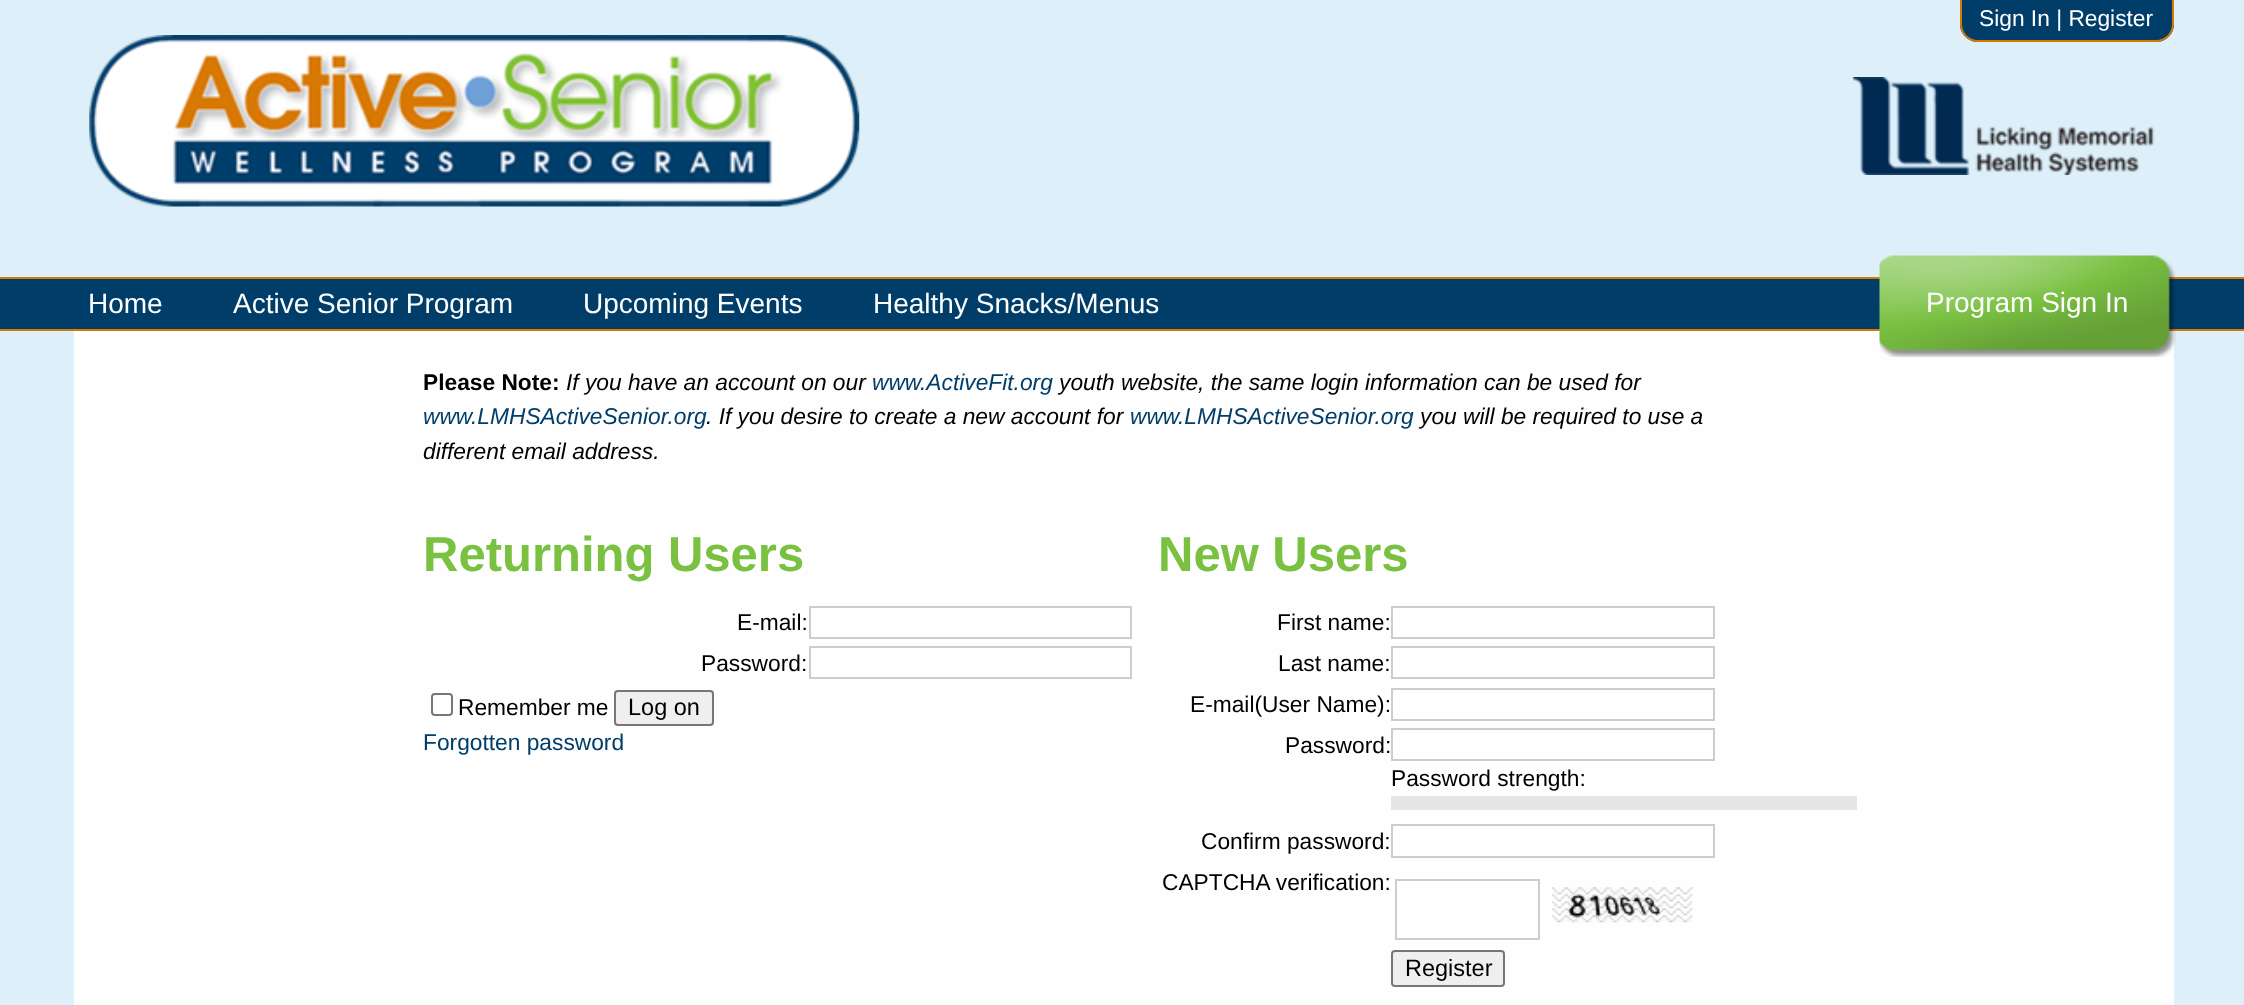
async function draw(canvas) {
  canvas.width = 2244
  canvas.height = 1005
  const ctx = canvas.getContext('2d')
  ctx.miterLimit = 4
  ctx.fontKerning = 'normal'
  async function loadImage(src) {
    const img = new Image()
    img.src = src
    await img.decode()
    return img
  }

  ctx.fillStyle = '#ddf0fa'
  ctx.fillRect(0, 0, 2244, 1005)
  ctx.fillStyle = '#003e69'
  ctx.beginPath()
  ctx.roundRect(1960, 0, 214, 42, [0, 0, 18, 18])
  ctx.fill()
  ctx.fillStyle = '#d77801'
  ctx.beginPath()
  ctx.moveTo(1960, 0)
  ctx.lineTo(2174, 0)
  ctx.lineTo(2174, 24)
  ctx.bezierCurveTo(2174, 34, 2166, 42, 2156, 42)
  ctx.lineTo(1978, 42)
  ctx.bezierCurveTo(1968, 42, 1960, 34, 1960, 24)
  ctx.closePath()
  ctx.moveTo(1962, 0)
  ctx.lineTo(2172, 0)
  ctx.lineTo(2172, 24)
  ctx.bezierCurveTo(2172, 33, 2165, 40, 2156, 40)
  ctx.lineTo(1978, 40)
  ctx.bezierCurveTo(1969, 40, 1962, 33, 1962, 24)
  ctx.closePath()
  ctx.fill('evenodd')
  ctx.font = '22.75px Liberation Sans'
  ctx.fillStyle = '#fff'
  ctx.fillText('Sign In | Register', 1979, 26)
  ctx.drawImage(await loadImage('image0.png'), 89, 35, 771, 172)
  ctx.drawImage(await loadImage('image1.png'), 1853, 77, 302, 98)
  ctx.fillStyle = '#003e69'
  ctx.fillRect(0, 279, 2244, 50)
  ctx.fillStyle = '#d77801'
  ctx.fillRect(0, 277, 2244, 2)
  ctx.fillRect(0, 329, 2244, 2)
  ctx.font = '28px Liberation Sans'
  ctx.fillStyle = '#fff'
  ctx.fillText('Home', 88, 313)
  ctx.fillText('Active Senior Program', 233, 313)
  ctx.fillText('Upcoming Events', 583, 313)
  ctx.fillText('Healthy Snacks/Menus', 873, 313)
  ctx.fillStyle = '#fefefe'
  ctx.fillRect(74, 331, 2100, 674)
  ctx.drawImage(await loadImage('image2.png'), 1879, 255, 297, 102)
  ctx.fillStyle = '#fff'
  ctx.fillText('Program Sign In', 1926, 312)
  ctx.font = 'bold 22.75px Liberation Sans'
  ctx.fillStyle = '#000'
  ctx.fillText('Please Note:', 423, 390)
  ctx.font = 'italic 22.75px Liberation Sans'
  ctx.fillText('If you have an account on our', 566, 390)
  ctx.fillStyle = '#003e69'
  ctx.fillText('www.ActiveFit.org', 872, 390)
  ctx.fillStyle = '#000'
  ctx.fillText('youth website, the same login information can be used for', 1059, 390)
  ctx.fillStyle = '#003e69'
  ctx.fillText('www.LMHSActiveSenior.org', 423, 424)
  ctx.fillStyle = '#000'
  ctx.fillText('. If you desire to create a new account for', 706, 424)
  ctx.fillStyle = '#003e69'
  ctx.fillText('www.LMHSActiveSenior.org', 1130, 424)
  ctx.fillStyle = '#000'
  ctx.fillText('you will be required to use a', 1420, 424)
  ctx.fillText('different email address.', 423, 459)
  ctx.font = 'bold 49px Liberation Sans'
  ctx.fillStyle = '#7ac142'
  ctx.fillText('Returning Users', 423, 571)
  ctx.font = '22.75px Liberation Sans'
  ctx.fillStyle = '#000'
  ctx.fillText('E-mail:', 737, 630)
  ctx.strokeStyle = '#cdcdcd'
  ctx.lineWidth = 2
  ctx.strokeRect(810, 607, 321, 31)
  ctx.fillText('Password:', 701, 671)
  ctx.strokeRect(810, 647, 321, 31)
  ctx.beginPath()
  ctx.roundRect(432, 694, 20, 21, 3)
  ctx.strokeStyle = '#767676'
  ctx.stroke()
  ctx.fillText('Remember me', 458, 715)
  ctx.fillStyle = '#efefef'
  ctx.beginPath()
  ctx.roundRect(615, 691, 98, 34, 3)
  ctx.fill()
  ctx.stroke()
  ctx.font = '23.5px Liberation Sans'
  ctx.fillStyle = '#000'
  ctx.fillText('Log on', 628, 715)
  ctx.font = '22.75px Liberation Sans'
  ctx.fillStyle = '#003e69'
  ctx.fillText('Forgotten password', 423, 750)
  ctx.font = 'bold 49px Liberation Sans'
  ctx.fillStyle = '#7ac142'
  ctx.fillText('New Users', 1158, 571)
  ctx.font = '22.75px Liberation Sans'
  ctx.fillStyle = '#000'
  ctx.fillText('First name:', 1277, 630)
  ctx.strokeStyle = '#cdcdcd'
  ctx.strokeRect(1392, 607, 322, 31)
  ctx.fillText('Last name:', 1278, 671)
  ctx.strokeRect(1392, 647, 322, 31)
  ctx.fillText('E-mail(User Name):', 1190, 712)
  ctx.strokeRect(1392, 689, 322, 31)
  ctx.fillText('Password:', 1285, 753)
  ctx.strokeRect(1392, 729, 322, 31)
  ctx.fillText('Password strength:', 1391, 786)
  ctx.fillStyle = '#e5e5e5'
  ctx.fillRect(1391, 796, 466, 14)
  ctx.fillStyle = '#000'
  ctx.fillText('Confirm password:', 1201, 849)
  ctx.strokeRect(1392, 825, 322, 32)
  ctx.fillText('CAPTCHA verification:', 1162, 890)
  ctx.strokeRect(1396, 880, 143, 59)
  ctx.drawImage(await loadImage('image3.png'), 1552, 887, 141, 36)
  ctx.fillStyle = '#efefef'
  ctx.beginPath()
  ctx.roundRect(1392, 951, 112, 35, 3)
  ctx.fill()
  ctx.strokeStyle = '#767676'
  ctx.stroke()
  ctx.font = '23.5px Liberation Sans'
  ctx.fillStyle = '#000'
  ctx.fillText('Register', 1405, 976)
}

draw(document.querySelector('canvas'))
